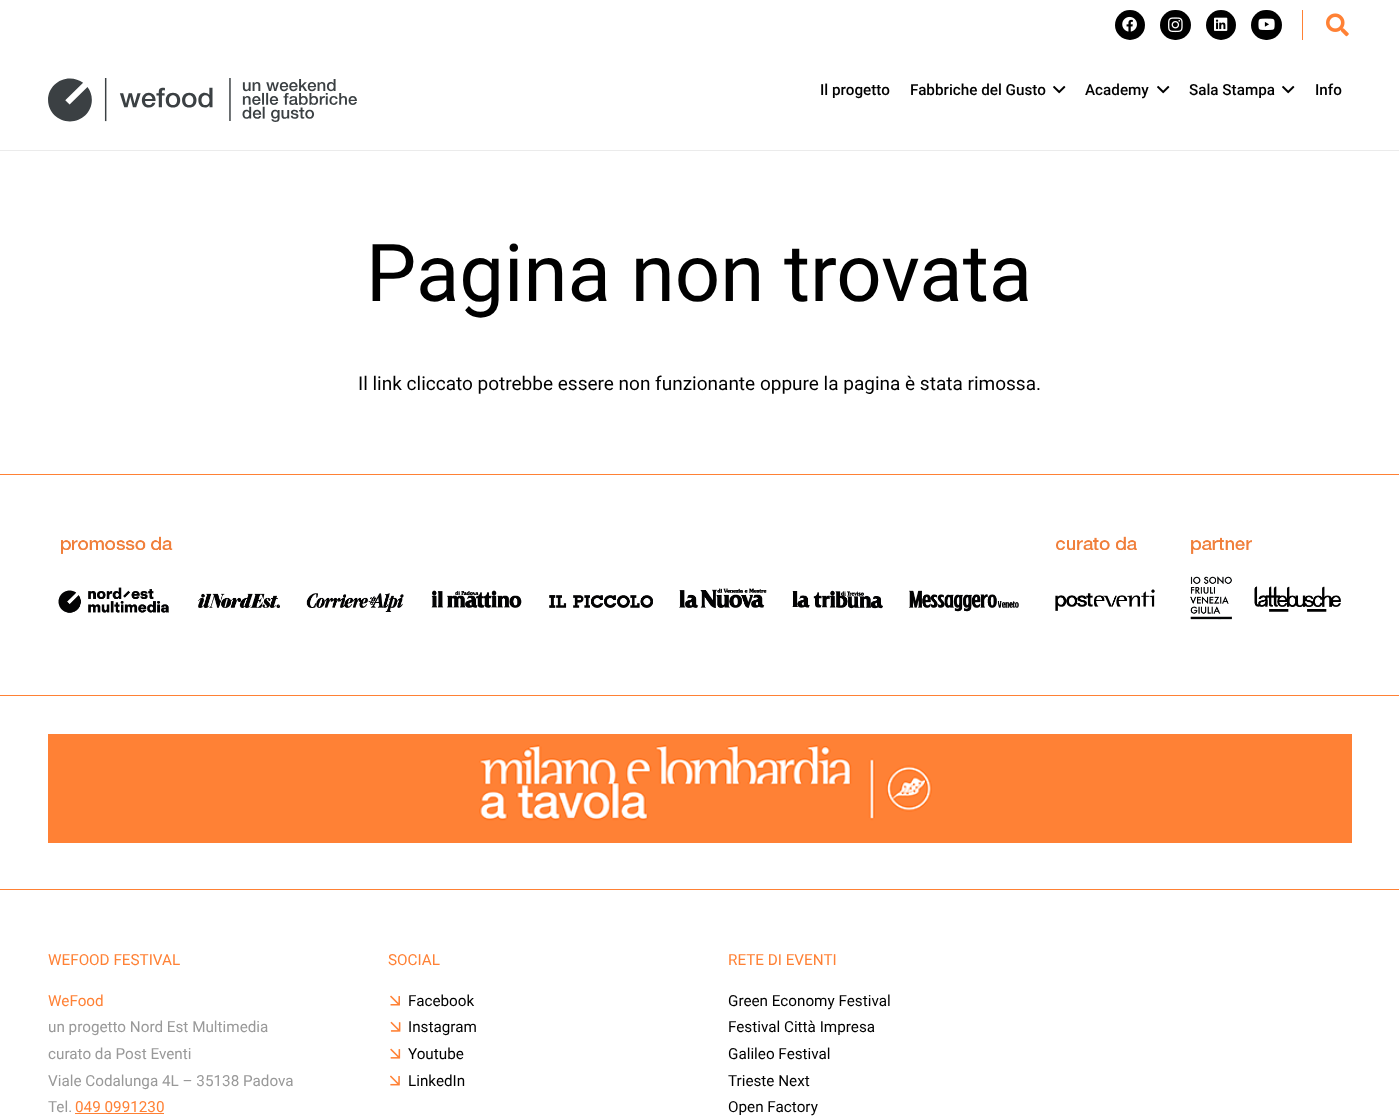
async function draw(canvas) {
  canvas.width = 1399
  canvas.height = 1119
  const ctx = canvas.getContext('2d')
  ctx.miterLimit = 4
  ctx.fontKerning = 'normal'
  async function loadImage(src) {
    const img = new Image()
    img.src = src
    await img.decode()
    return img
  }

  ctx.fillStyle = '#fff'
  ctx.fillRect(0, 0, 1399, 1119)
  ctx.fillStyle = '#ff8135'
  ctx.fillRect(1302, 10, 1, 30)
  ctx.fillStyle = '#000'
  ctx.beginPath()
  ctx.arc(1130, 25, 15, 0, 2 * Math.PI)
  ctx.fill()
  ctx.drawImage(await loadImage('image0.png'), 1122, 16, 15, 16)
  ctx.beginPath()
  ctx.roundRect(1160, 10, 31, 30, 15)
  ctx.fill()
  ctx.drawImage(await loadImage('image1.png'), 1168, 17, 15, 16)
  ctx.beginPath()
  ctx.arc(1221, 25, 15, 0, 2 * Math.PI)
  ctx.fill()
  ctx.drawImage(await loadImage('image2.png'), 1214, 17, 14, 14)
  ctx.beginPath()
  ctx.roundRect(1251, 10, 31, 30, 15)
  ctx.fill()
  ctx.drawImage(await loadImage('image3.png'), 1258, 18, 17, 12)
  ctx.drawImage(await loadImage('image4.png'), 1326, 13, 23, 24)
  ctx.fillStyle = '#ebebeb'
  ctx.fillRect(0, 150, 1399, 1)
  ctx.drawImage(await loadImage('image5.png'), 48, 78, 309, 44)
  ctx.font = '500 15.25px Roboto'
  ctx.fillStyle = '#000'
  ctx.fillText('Il progetto', 820, 95)
  ctx.fillText('Fabbriche del Gusto', 910, 95)
  ctx.drawImage(await loadImage('image6.png'), 1053, 85, 13, 9)
  ctx.fillText('Academy', 1085, 95)
  ctx.drawImage(await loadImage('image6.png'), 1157, 85, 13, 9)
  ctx.fillText('Sala Stampa', 1189, 95)
  ctx.drawImage(await loadImage('image6.png'), 1282, 85, 13, 9)
  ctx.fillText('Info', 1315, 95)
  ctx.font = '79.75px Roboto'
  ctx.fillText('Pagina non trovata', 366, 301)
  ctx.font = '19px Roboto'
  ctx.fillText('Il link cliccato potrebbe essere non funzionante oppure la pagina è stata rimossa.', 358, 390)
  ctx.fillStyle = '#ff8135'
  ctx.fillRect(0, 474, 1399, 1)
  ctx.drawImage(await loadImage('image7.png'), 58, 536, 1283, 84)
  ctx.fillRect(0, 695, 1399, 1)
  ctx.drawImage(await loadImage('image8.png'), 48, 734, 1304, 109)
  ctx.fillRect(0, 889, 1399, 1)
  ctx.font = '15.25px Roboto'
  ctx.fillText('WEFOOD FESTIVAL', 48, 965)
  ctx.fillText('WeFood', 48, 1006)
  ctx.fillStyle = '#999'
  ctx.fillText('un progetto Nord Est Multimedia', 48, 1032)
  ctx.fillText('curato da Post Eventi', 48, 1059)
  ctx.fillText('Viale Codalunga 4L – 35138 Padova', 48, 1086)
  ctx.fillText('Tel.', 48, 1112)
  ctx.fillStyle = '#ff8135'
  ctx.fillText('049 0991230', 75, 1112)
  ctx.fillRect(75, 1113, 89, 1)
  ctx.fillText('SOCIAL', 388, 965)
  ctx.drawImage(await loadImage('image9.png'), 390, 995, 10, 11)
  ctx.fillStyle = '#000'
  ctx.fillText('Facebook', 408, 1006)
  ctx.drawImage(await loadImage('image10.png'), 390, 1021, 11, 11)
  ctx.fillText('Instagram', 408, 1032)
  ctx.drawImage(await loadImage('image11.png'), 390, 1048, 11, 11)
  ctx.fillText('Youtube', 408, 1059)
  ctx.drawImage(await loadImage('image12.png'), 390, 1075, 10, 11)
  ctx.fillText('LinkedIn', 408, 1086)
  ctx.fillStyle = '#ff8135'
  ctx.fillText('RETE DI EVENTI', 728, 965)
  ctx.fillStyle = '#000'
  ctx.fillText('Green Economy Festival', 728, 1006)
  ctx.fillText('Festival Città Impresa', 728, 1032)
  ctx.fillText('Galileo Festival', 728, 1059)
  ctx.fillText('Trieste Next', 728, 1086)
  ctx.fillText('Open Factory', 728, 1112)
}

draw(document.querySelector('canvas'))
